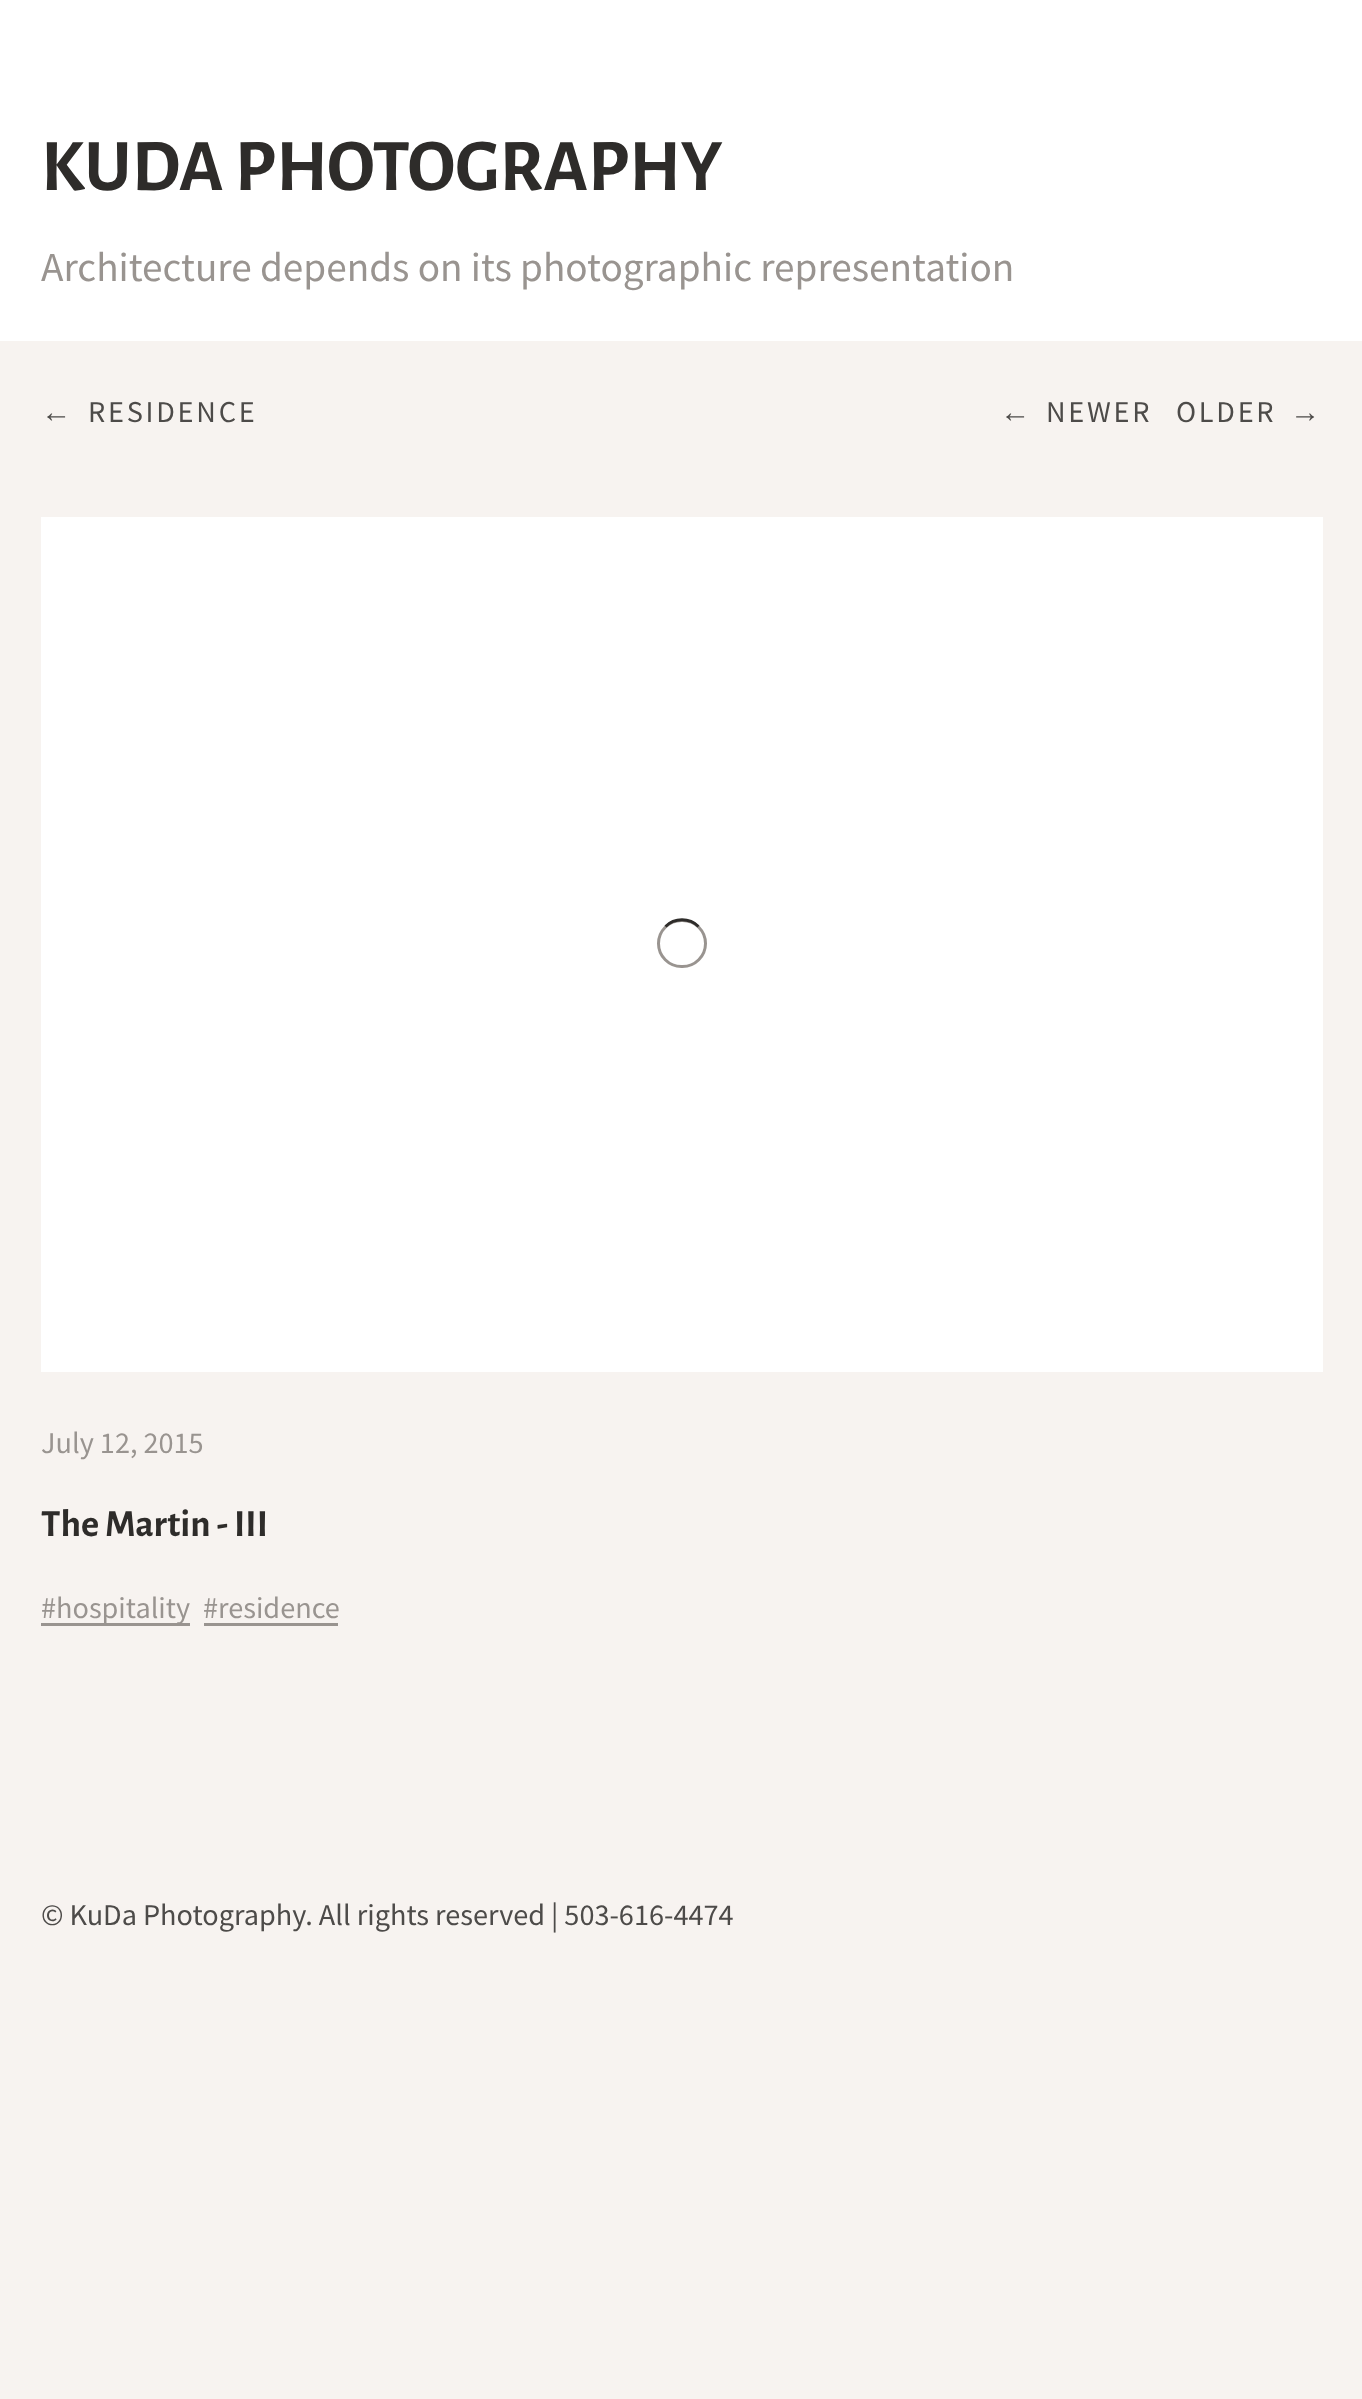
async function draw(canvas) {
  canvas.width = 1362
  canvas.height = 2399
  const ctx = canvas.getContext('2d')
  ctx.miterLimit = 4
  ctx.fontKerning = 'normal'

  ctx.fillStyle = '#f7f3f0'
  ctx.fillRect(0, 0, 1362, 2399)
  ctx.fillStyle = '#fff'
  ctx.fillRect(0, 0, 1362, 341)
  ctx.font = 'bold 74.25px Alegreya Sans'
  ctx.fillStyle = '#2e2c2a'
  ctx.fillText('KUDA PHOTOGRAPHY', 41, 190)
  ctx.font = '41.25px Source Sans Pro'
  ctx.fillStyle = '#999490'
  ctx.fillText('Architecture depends on its photographic representation', 41, 281)
  ctx.letterSpacing = '2.75px'
  ctx.font = '30.25px Liberation Sans'
  ctx.fillStyle = '#4d4b49'
  ctx.fillText('←', 41, 422)
  ctx.font = '30.25px Source Sans Pro'
  ctx.fillText('RESIDENCE', 88, 422)
  ctx.font = '30.25px Liberation Sans'
  ctx.fillText('←', 1000, 422)
  ctx.font = '30.25px Source Sans Pro'
  ctx.fillText('NEWER', 1046, 422)
  ctx.fillText('OLDER', 1176, 422)
  ctx.font = '30.25px Liberation Sans'
  ctx.fillText('→', 1290, 422)
  ctx.fillStyle = '#fff'
  ctx.fillRect(41, 517, 1282, 855)
  ctx.beginPath()
  ctx.roundRect(658.5, 920.5, 47, 46, 23)
  ctx.strokeStyle = '#999490'
  ctx.lineWidth = 3
  ctx.stroke()
  ctx.beginPath()
  ctx.moveTo(665.5, 926.5)
  ctx.bezierCurveTo(674.5, 917.5, 689.5, 917.5, 698.5, 926.5)
  ctx.strokeStyle = '#2e2c2a'
  ctx.lineWidth = 2.8
  ctx.stroke()
  ctx.letterSpacing = '0px'
  ctx.font = '30.25px Source Sans Pro'
  ctx.fillStyle = '#999490'
  ctx.fillText('July 12, 2015', 41, 1453)
  ctx.font = 'bold 38.5px Alegreya Sans'
  ctx.fillStyle = '#2e2c2a'
  ctx.fillText('The Martin - III', 41, 1536)
  ctx.fillStyle = '#999490'
  ctx.fillRect(41, 1623, 149, 3)
  ctx.font = '30.25px Source Sans Pro'
  ctx.fillText('#hospitality', 41, 1618)
  ctx.fillText('#residence', 203, 1618)
  ctx.fillRect(204, 1623, 134, 3)
  ctx.fillStyle = '#4d4b49'
  ctx.fillText('© KuDa Photography. All rights reserved | 503-616-4474', 41, 1925)
}

draw(document.querySelector('canvas'))
